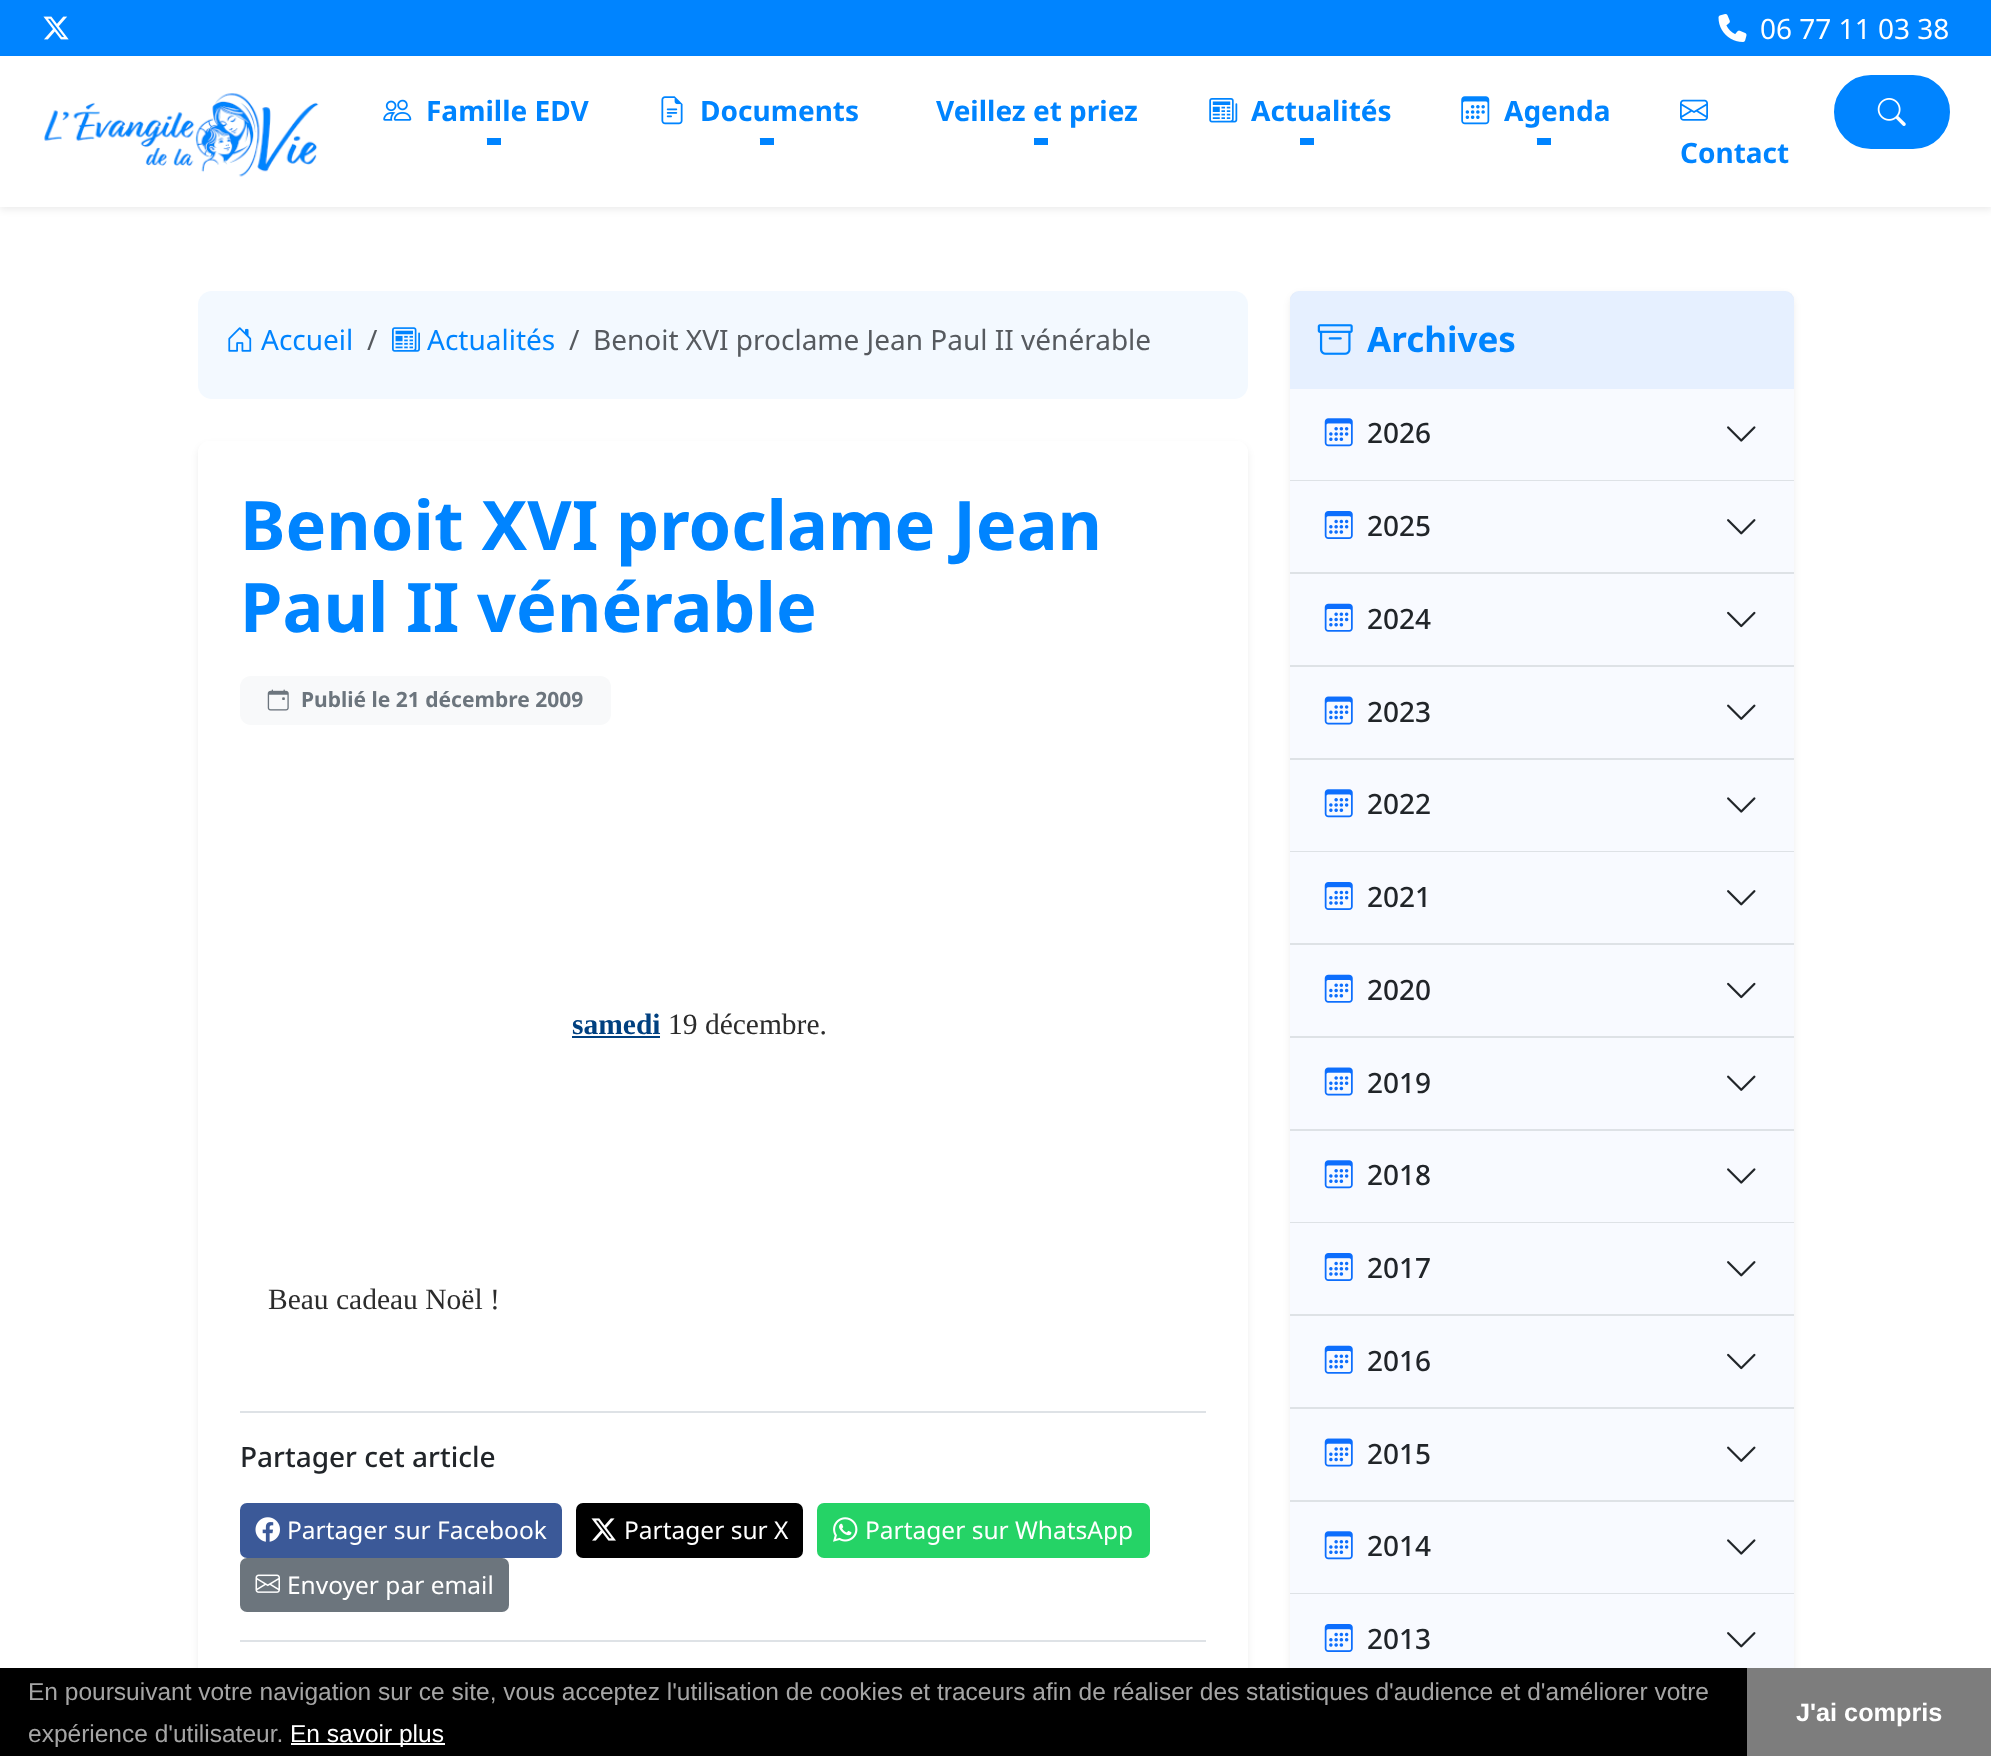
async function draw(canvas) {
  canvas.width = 1991
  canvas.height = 1756
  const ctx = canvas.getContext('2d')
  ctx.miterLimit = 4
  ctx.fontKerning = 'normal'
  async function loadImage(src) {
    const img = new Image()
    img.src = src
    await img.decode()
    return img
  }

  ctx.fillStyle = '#fff'
  ctx.fillRect(0, 0, 1991, 1756)
  ctx.fillStyle = '#0084ff'
  ctx.fillRect(0, 0, 1991, 56)
  ctx.drawImage(await loadImage('image0.png'), 43, 16, 26, 24)
  ctx.drawImage(await loadImage('image1.png'), 1718, 14, 29, 28)
  ctx.font = '28px Noto Sans'
  ctx.fillStyle = '#fff'
  ctx.fillText('06 77 11 03 38', 1760, 39)
  ctx.fillStyle = '#00000012'
  ctx.filter = 'blur(3.5px)'
  ctx.beginPath()
  ctx.rect(0, 60, 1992, 150)
  ctx.fill()
  ctx.filter = 'none'
  ctx.fillStyle = '#fff'
  ctx.fillRect(0, 56, 1991, 151)
  ctx.drawImage(await loadImage('image2.png'), 44, 93, 275, 84)
  ctx.drawImage(await loadImage('image3.png'), 383, 99, 29, 22)
  ctx.font = 'bold 28px Noto Sans'
  ctx.fillStyle = '#0084ff'
  ctx.fillText('Famille EDV', 426, 121)
  ctx.fillRect(487, 138, 14, 7)
  ctx.beginPath()
  ctx.moveTo(486.5, 138)
  ctx.lineTo(500.5, 138)
  ctx.lineTo(493.5, 145)
  ctx.closePath()
  ctx.fill()
  ctx.drawImage(await loadImage('image4.png'), 661, 96, 22, 29)
  ctx.fillText('Documents', 700, 121)
  ctx.fillRect(760, 138, 14, 7)
  ctx.beginPath()
  ctx.moveTo(759.5, 138)
  ctx.lineTo(773.5, 138)
  ctx.lineTo(766.5, 145)
  ctx.closePath()
  ctx.fill()
  ctx.fillText('Veillez et priez', 936, 121)
  ctx.fillRect(1034, 138, 14, 7)
  ctx.drawImage(await loadImage('image5.png'), 1209, 98, 29, 25)
  ctx.fillText('Actualités', 1251, 121)
  ctx.fillRect(1300, 138, 14, 7)
  ctx.drawImage(await loadImage('image6.png'), 1461, 96, 29, 29)
  ctx.fillText('Agenda', 1504, 121)
  ctx.fillRect(1537, 138, 14, 7)
  ctx.beginPath()
  ctx.moveTo(1536.5, 138)
  ctx.lineTo(1550.5, 138)
  ctx.lineTo(1543.5, 145)
  ctx.closePath()
  ctx.fill()
  ctx.beginPath()
  ctx.roundRect(1835, 76, 114, 72, 36)
  ctx.fill()
  ctx.strokeStyle = '#0084ff'
  ctx.lineWidth = 2
  ctx.stroke()
  ctx.drawImage(await loadImage('image7.png'), 1877, 98, 29, 28)
  ctx.drawImage(await loadImage('image8.png'), 1680, 99, 28, 22)
  ctx.fillText('Contact', 1680, 163)
  ctx.fillStyle = '#f3f9ff'
  ctx.beginPath()
  ctx.roundRect(198, 291, 1050, 108, 14)
  ctx.fill()
  ctx.drawImage(await loadImage('image9.png'), 228, 327, 24, 25)
  ctx.font = '28px Noto Sans'
  ctx.fillStyle = '#0084ff'
  ctx.fillText('Accueil', 261, 350)
  ctx.fillStyle = '#565a5f'
  ctx.fillText('/', 367, 350)
  ctx.drawImage(await loadImage('image10.png'), 392, 327, 28, 25)
  ctx.fillStyle = '#0084ff'
  ctx.fillText('Actualités', 427, 350)
  ctx.fillStyle = '#565a5f'
  ctx.fillText('/', 569, 350)
  ctx.fillText('Benoit XVI proclame Jean Paul II vénérable', 593, 350)
  ctx.fillStyle = '#00000012'
  ctx.filter = 'blur(3.5px)'
  ctx.beginPath()
  ctx.roundRect(198, 445, 1050, 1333, 11)
  ctx.fill()
  ctx.filter = 'none'
  ctx.fillStyle = '#fff'
  ctx.beginPath()
  ctx.roundRect(198, 441, 1050, 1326, 11)
  ctx.fill()
  ctx.font = 'bold 68.4px Noto Sans'
  ctx.fillStyle = '#0084ff'
  ctx.fillText('Benoit XVI proclame Jean', 240, 550)
  ctx.fillText('Paul II vénérable', 240, 632)
  ctx.fillStyle = '#f8f9fa'
  ctx.beginPath()
  ctx.roundRect(240, 676, 371, 49, 11)
  ctx.fill()
  ctx.drawImage(await loadImage('image11.png'), 267, 689, 22, 22)
  ctx.font = 'bold 21px Noto Sans'
  ctx.fillStyle = '#6c757d'
  ctx.fillText('Publié le 21 décembre 2009', 301, 707)
  ctx.font = 'bold 29.5px Liberation Serif'
  ctx.fillStyle = '#004080'
  ctx.fillText('samedi', 572, 1034)
  ctx.fillRect(572, 1036, 88, 2)
  ctx.font = '29.5px Liberation Serif'
  ctx.fillStyle = '#2c2c2c'
  ctx.fillText('19 décembre.', 668, 1034)
  ctx.fillText('Beau cadeau Noël !', 268, 1309)
  ctx.fillStyle = '#dee2e6'
  ctx.fillRect(240, 1411, 966, 2)
  ctx.fillRect(240, 1640, 966, 2)
  ctx.font = '500 28px Noto Sans'
  ctx.fillStyle = '#212529'
  ctx.fillText('Partager cet article', 240, 1467)
  ctx.fillStyle = '#3b5998'
  ctx.beginPath()
  ctx.roundRect(240, 1503, 322, 55, 7)
  ctx.fill()
  ctx.drawImage(await loadImage('image12.png'), 255, 1517, 25, 25)
  ctx.font = '24.5px Noto Sans'
  ctx.fillStyle = '#fff'
  ctx.fillText('Partager sur Facebook', 287, 1539)
  ctx.fillStyle = '#000'
  ctx.beginPath()
  ctx.roundRect(576, 1503, 227, 55, 7)
  ctx.fill()
  ctx.drawImage(await loadImage('image13.png'), 591, 1518, 25, 23)
  ctx.fillStyle = '#fff'
  ctx.fillText('Partager sur X', 624, 1539)
  ctx.fillStyle = '#25d366'
  ctx.beginPath()
  ctx.roundRect(817, 1503, 333, 55, 7)
  ctx.fill()
  ctx.drawImage(await loadImage('image14.png'), 833, 1517, 25, 25)
  ctx.fillStyle = '#fff'
  ctx.fillText('Partager sur WhatsApp', 865, 1539)
  ctx.fillStyle = '#6c757d'
  ctx.beginPath()
  ctx.roundRect(240, 1558, 269, 54, 7)
  ctx.fill()
  ctx.drawImage(await loadImage('image15.png'), 255, 1574, 25, 19)
  ctx.fillStyle = '#fff'
  ctx.fillText('Envoyer par email', 287, 1594)
  ctx.fillStyle = '#00000012'
  ctx.filter = 'blur(3.5px)'
  ctx.beginPath()
  ctx.roundRect(1290, 294, 504, 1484, 11)
  ctx.fill()
  ctx.filter = 'none'
  ctx.fillStyle = '#fff'
  ctx.beginPath()
  ctx.roundRect(1290, 291, 504, 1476, 11)
  ctx.fill()
  ctx.fillStyle = '#0d6efd1a'
  ctx.beginPath()
  ctx.roundRect(1290, 291, 504, 98, [9, 9, 0, 0])
  ctx.fill()
  ctx.drawImage(await loadImage('image16.png'), 1317, 324, 36, 31)
  ctx.font = 'bold 35px Noto Sans'
  ctx.fillStyle = '#0084ff'
  ctx.fillText('Archives', 1367, 352)
  ctx.fillStyle = '#dee2e6'
  ctx.fillRect(1290, 480, 504, 1)
  ctx.fillStyle = '#f8faff'
  ctx.fillRect(1290, 389, 504, 91)
  ctx.drawImage(await loadImage('image17.png'), 1324, 418, 29, 29)
  ctx.font = '500 28px Noto Sans'
  ctx.fillStyle = '#212529'
  ctx.fillText('2026', 1367, 443)
  ctx.drawImage(await loadImage('image18.png'), 1727, 426, 29, 16)
  ctx.fillStyle = '#dee2e6'
  ctx.fillRect(1290, 572, 504, 2)
  ctx.fillStyle = '#f8faff'
  ctx.fillRect(1290, 481, 504, 91)
  ctx.drawImage(await loadImage('image19.png'), 1324, 511, 29, 28)
  ctx.fillStyle = '#212529'
  ctx.fillText('2025', 1367, 536)
  ctx.drawImage(await loadImage('image20.png'), 1727, 519, 29, 16)
  ctx.fillStyle = '#dee2e6'
  ctx.fillRect(1290, 665, 504, 2)
  ctx.fillStyle = '#f8faff'
  ctx.fillRect(1290, 574, 504, 91)
  ctx.drawImage(await loadImage('image21.png'), 1324, 603, 29, 29)
  ctx.fillStyle = '#212529'
  ctx.fillText('2024', 1367, 629)
  ctx.drawImage(await loadImage('image22.png'), 1727, 611, 29, 17)
  ctx.fillStyle = '#dee2e6'
  ctx.fillRect(1290, 758, 504, 2)
  ctx.fillStyle = '#f8faff'
  ctx.fillRect(1290, 667, 504, 91)
  ctx.drawImage(await loadImage('image23.png'), 1324, 696, 29, 29)
  ctx.fillStyle = '#212529'
  ctx.fillText('2023', 1367, 722)
  ctx.drawImage(await loadImage('image24.png'), 1727, 704, 29, 16)
  ctx.fillStyle = '#dee2e6'
  ctx.fillRect(1290, 851, 504, 1)
  ctx.fillStyle = '#f8faff'
  ctx.fillRect(1290, 760, 504, 91)
  ctx.drawImage(await loadImage('image17.png'), 1324, 789, 29, 29)
  ctx.fillStyle = '#212529'
  ctx.fillText('2022', 1367, 814)
  ctx.drawImage(await loadImage('image18.png'), 1727, 797, 29, 16)
  ctx.fillStyle = '#dee2e6'
  ctx.fillRect(1290, 943, 504, 2)
  ctx.fillStyle = '#f8faff'
  ctx.fillRect(1290, 852, 504, 91)
  ctx.drawImage(await loadImage('image19.png'), 1324, 882, 29, 28)
  ctx.fillStyle = '#212529'
  ctx.fillText('2021', 1367, 907)
  ctx.drawImage(await loadImage('image20.png'), 1727, 890, 29, 16)
  ctx.fillStyle = '#dee2e6'
  ctx.fillRect(1290, 1036, 504, 2)
  ctx.fillStyle = '#f8faff'
  ctx.fillRect(1290, 945, 504, 91)
  ctx.drawImage(await loadImage('image21.png'), 1324, 974, 29, 29)
  ctx.fillStyle = '#212529'
  ctx.fillText('2020', 1367, 1000)
  ctx.drawImage(await loadImage('image22.png'), 1727, 982, 29, 17)
  ctx.fillStyle = '#dee2e6'
  ctx.fillRect(1290, 1129, 504, 2)
  ctx.fillStyle = '#f8faff'
  ctx.fillRect(1290, 1038, 504, 91)
  ctx.drawImage(await loadImage('image23.png'), 1324, 1067, 29, 29)
  ctx.fillStyle = '#212529'
  ctx.fillText('2019', 1367, 1093)
  ctx.drawImage(await loadImage('image24.png'), 1727, 1075, 29, 16)
  ctx.fillStyle = '#dee2e6'
  ctx.fillRect(1290, 1222, 504, 1)
  ctx.fillStyle = '#f8faff'
  ctx.fillRect(1290, 1131, 504, 91)
  ctx.drawImage(await loadImage('image17.png'), 1324, 1160, 29, 29)
  ctx.fillStyle = '#212529'
  ctx.fillText('2018', 1367, 1185)
  ctx.drawImage(await loadImage('image18.png'), 1727, 1168, 29, 16)
  ctx.fillStyle = '#dee2e6'
  ctx.fillRect(1290, 1314, 504, 2)
  ctx.fillStyle = '#f8faff'
  ctx.fillRect(1290, 1223, 504, 91)
  ctx.drawImage(await loadImage('image19.png'), 1324, 1253, 29, 28)
  ctx.fillStyle = '#212529'
  ctx.fillText('2017', 1367, 1278)
  ctx.drawImage(await loadImage('image20.png'), 1727, 1261, 29, 16)
  ctx.fillStyle = '#dee2e6'
  ctx.fillRect(1290, 1407, 504, 2)
  ctx.fillStyle = '#f8faff'
  ctx.fillRect(1290, 1316, 504, 91)
  ctx.drawImage(await loadImage('image21.png'), 1324, 1345, 29, 29)
  ctx.fillStyle = '#212529'
  ctx.fillText('2016', 1367, 1371)
  ctx.drawImage(await loadImage('image22.png'), 1727, 1353, 29, 17)
  ctx.fillStyle = '#dee2e6'
  ctx.fillRect(1290, 1500, 504, 2)
  ctx.fillStyle = '#f8faff'
  ctx.fillRect(1290, 1409, 504, 91)
  ctx.drawImage(await loadImage('image23.png'), 1324, 1438, 29, 29)
  ctx.fillStyle = '#212529'
  ctx.fillText('2015', 1367, 1464)
  ctx.drawImage(await loadImage('image24.png'), 1727, 1446, 29, 16)
  ctx.fillStyle = '#dee2e6'
  ctx.fillRect(1290, 1593, 504, 1)
  ctx.fillStyle = '#f8faff'
  ctx.fillRect(1290, 1502, 504, 91)
  ctx.drawImage(await loadImage('image17.png'), 1324, 1531, 29, 29)
  ctx.fillStyle = '#212529'
  ctx.fillText('2014', 1367, 1556)
  ctx.drawImage(await loadImage('image18.png'), 1727, 1539, 29, 16)
  ctx.fillStyle = '#f8faff'
  ctx.fillRect(1290, 1594, 504, 74)
  ctx.drawImage(await loadImage('image19.png'), 1324, 1624, 29, 28)
  ctx.fillStyle = '#212529'
  ctx.fillText('2013', 1367, 1649)
  ctx.drawImage(await loadImage('image20.png'), 1727, 1632, 29, 16)
  ctx.fillStyle = '#000'
  ctx.fillRect(0, 1668, 1747, 88)
  ctx.font = '24.5px Liberation Sans'
  ctx.fillStyle = '#a5a5a5'
  ctx.fillText('En poursuivant votre navigation sur ce site, vous acceptez l\'utilisation de cookies et traceurs afin de réaliser des statistiques d\'audience et d\'améliorer votre', 28, 1700)
  ctx.fillText('expérience d\'utilisateur.', 28, 1742)
  ctx.fillStyle = '#fff'
  ctx.fillRect(291, 1743, 154, 2)
  ctx.fillText('En savoir plus', 290, 1742)
  ctx.fillStyle = '#7d7d7d'
  ctx.fillRect(1747, 1668, 244, 88)
  ctx.font = 'bold 25.25px Liberation Sans'
  ctx.fillStyle = '#fff'
  ctx.fillText('J\'ai compris', 1796, 1721)
}

draw(document.querySelector('canvas'))
